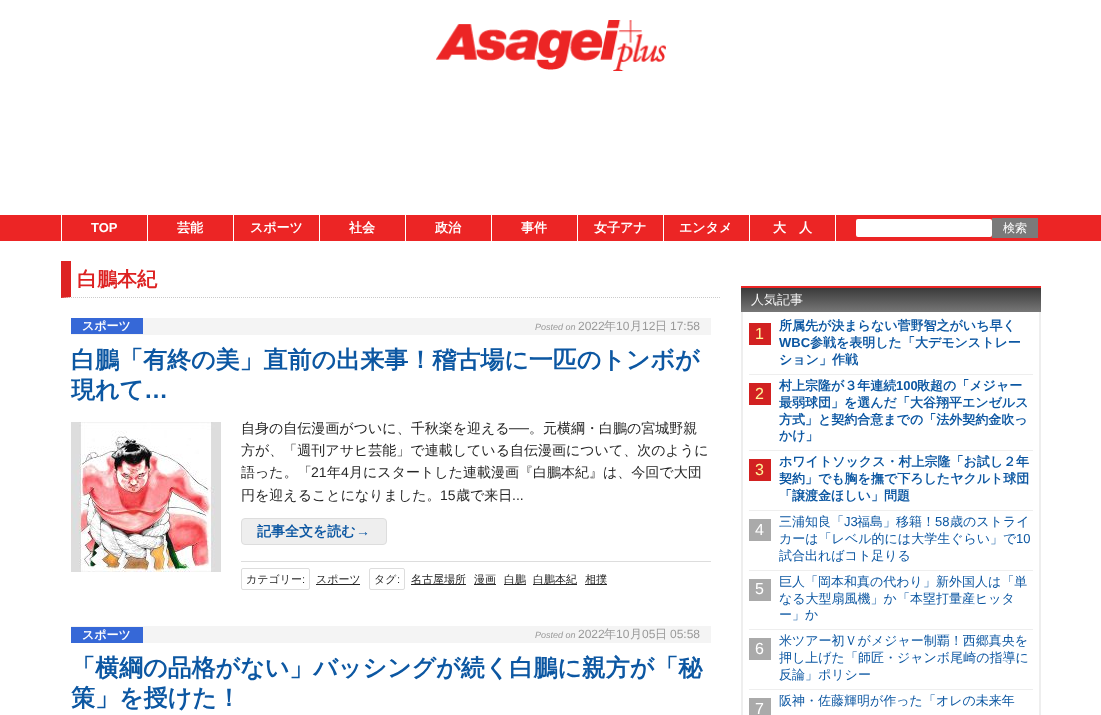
async function draw(canvas) {
  canvas.width = 1101
  canvas.height = 715
  const ctx = canvas.getContext('2d')
  ctx.miterLimit = 4
  ctx.fontKerning = 'normal'
  async function loadImage(src) {
    const img = new Image()
    img.src = src
    await img.decode()
    return img
  }
  let gradient

  ctx.fillStyle = '#fff'
  ctx.fillRect(0, 0, 1101, 715)
  ctx.drawImage(await loadImage('image0.png'), 436, 20, 230, 51)
  ctx.fillStyle = '#ec2525'
  ctx.fillRect(0, 215, 1101, 26)
  ctx.fillStyle = '#fff'
  ctx.fillRect(147, 215, 1, 26)
  ctx.fillRect(61, 215, 1, 26)
  ctx.font = 'bold 13px Liberation Sans'
  ctx.fillText('TOP', 91, 232)
  ctx.fillRect(233, 215, 1, 26)
  ctx.font = 'bold 13px WenQuanYi Zen Hei'
  ctx.fillText('芸能', 177, 232)
  ctx.fillRect(319, 215, 1, 26)
  ctx.fillText('スポーツ', 250, 232)
  ctx.fillRect(405, 215, 1, 26)
  ctx.fillText('社会', 349, 232)
  ctx.fillRect(491, 215, 1, 26)
  ctx.fillText('政治', 435, 232)
  ctx.fillRect(577, 215, 1, 26)
  ctx.fillText('事件', 521, 232)
  ctx.fillRect(663, 215, 1, 26)
  ctx.fillText('女子アナ', 594, 232)
  ctx.fillRect(749, 215, 1, 26)
  ctx.fillText('エンタメ', 679, 232)
  ctx.fillRect(835, 215, 1, 26)
  ctx.fillText('大　人', 773, 232)
  ctx.beginPath()
  ctx.roundRect(856, 219, 136, 18, 2)
  ctx.fill()
  ctx.fillStyle = '#7a7a7a'
  ctx.fillRect(992, 218, 46, 20)
  ctx.font = '500 12px WenQuanYi Zen Hei'
  ctx.fillStyle = '#fff'
  ctx.fillText('検索', 1003, 232)
  ctx.beginPath()
  ctx.moveTo(61, 297.5)
  ctx.lineTo(721, 297.5)
  ctx.strokeStyle = '#ccc'
  ctx.setLineDash([1, 1])
  ctx.stroke()
  ctx.fillStyle = '#d22'
  ctx.beginPath()
  ctx.moveTo(61, 298)
  ctx.lineTo(61, 261)
  ctx.lineTo(71, 261)
  ctx.lineTo(71, 297)
  ctx.closePath()
  ctx.fill()
  ctx.font = 'bold 20px WenQuanYi Zen Hei'
  ctx.fillText('白鵬本紀', 77, 286)
  ctx.fillStyle = '#f4f4f4'
  ctx.fillRect(71, 318, 640, 17)
  ctx.fillStyle = '#3668d7'
  ctx.fillRect(71, 318, 72, 16)
  ctx.font = 'bold 12px WenQuanYi Zen Hei'
  ctx.fillStyle = '#fff'
  ctx.fillText('スポーツ', 82, 330)
  ctx.font = 'italic 9px Liberation Sans'
  ctx.fillStyle = '#999'
  ctx.fillText('Posted on', 535, 330)
  ctx.font = '12px Liberation Sans'
  ctx.fillText('2022', 578, 330)
  ctx.font = '500 12px WenQuanYi Zen Hei'
  ctx.fillText('年', 604, 330)
  ctx.font = '12px Liberation Sans'
  ctx.fillText('10', 616, 330)
  ctx.font = '500 12px WenQuanYi Zen Hei'
  ctx.fillText('月', 630, 330)
  ctx.font = '12px Liberation Sans'
  ctx.fillText('12', 642, 330)
  ctx.font = '500 12px WenQuanYi Zen Hei'
  ctx.fillText('日', 655, 330)
  ctx.font = '12px Liberation Sans'
  ctx.fillText('17:58', 670, 330)
  ctx.font = 'bold 24px WenQuanYi Zen Hei'
  ctx.fillStyle = '#0c57a2'
  ctx.fillText('白鵬「有終の美」直前の出来事！稽古場に一匹のトンボが', 71, 368)
  ctx.fillText('現れて', 71, 398)
  ctx.font = 'bold 24px Liberation Sans'
  ctx.fillText('…', 144, 398)
  ctx.drawImage(await loadImage('image1.png'), 71, 422, 150, 150)
  ctx.font = '500 14px WenQuanYi Zen Hei'
  ctx.fillStyle = '#262626'
  ctx.fillText('自身の自伝漫画がついに、千秋楽を迎える', 241, 433)
  ctx.font = '14px Liberation Sans'
  ctx.fillText('──', 509, 433)
  ctx.font = '500 14px WenQuanYi Zen Hei'
  ctx.fillText('。元横綱・白鵬の宮城野親', 529, 433)
  ctx.fillText('方が、「週刊アサヒ芸能」で連載している自伝漫画について、次のように', 241, 455)
  ctx.fillText('語った。「', 241, 477)
  ctx.font = '14px Liberation Sans'
  ctx.fillText('21', 311, 477)
  ctx.font = '500 14px WenQuanYi Zen Hei'
  ctx.fillText('年', 327, 477)
  ctx.font = '14px Liberation Sans'
  ctx.fillText('4', 341, 477)
  ctx.font = '500 14px WenQuanYi Zen Hei'
  ctx.fillText('月にスタートした連載漫画『白鵬本紀』は、今回で大団', 349, 477)
  ctx.fillText('円を迎えることになりました。', 241, 500)
  ctx.font = '14px Liberation Sans'
  ctx.fillText('15', 440, 500)
  ctx.font = '500 14px WenQuanYi Zen Hei'
  ctx.fillText('歳で来日', 456, 500)
  ctx.font = '14px Liberation Sans'
  ctx.fillText('...', 512, 500)
  ctx.fillStyle = '#eee'
  ctx.beginPath()
  ctx.roundRect(241.5, 518.5, 145, 26, 3.5)
  ctx.fill()
  ctx.strokeStyle = '#ddd'
  ctx.setLineDash([])
  ctx.stroke()
  ctx.font = 'bold 14px WenQuanYi Zen Hei'
  ctx.fillStyle = '#0c57a2'
  ctx.fillText('記事全文を読む', 257, 536)
  ctx.font = 'bold 14px Liberation Sans'
  ctx.fillText('→', 356, 536)
  ctx.fillStyle = '#ddd'
  ctx.fillRect(241, 561, 470, 1)
  ctx.beginPath()
  ctx.roundRect(241.5, 568.5, 68, 21, 1.5)
  ctx.stroke()
  ctx.font = '500 11px WenQuanYi Zen Hei'
  ctx.fillStyle = '#262626'
  ctx.fillText('カテゴリー', 246, 583)
  ctx.font = '11px Liberation Sans'
  ctx.fillText(':', 302, 583)
  ctx.fillRect(316, 584, 44, 1)
  ctx.font = '500 11px WenQuanYi Zen Hei'
  ctx.fillText('スポーツ', 316, 583)
  ctx.beginPath()
  ctx.roundRect(369.5, 568.5, 35, 21, 1.5)
  ctx.stroke()
  ctx.fillText('タグ', 374, 583)
  ctx.font = '11px Liberation Sans'
  ctx.fillText(':', 397, 583)
  ctx.fillRect(411, 584, 55, 1)
  ctx.font = '500 11px WenQuanYi Zen Hei'
  ctx.fillText('名古屋場所', 411, 583)
  ctx.fillRect(474, 584, 22, 1)
  ctx.fillText('漫画', 474, 583)
  ctx.fillRect(504, 584, 22, 1)
  ctx.fillText('白鵬', 504, 583)
  ctx.fillRect(533, 584, 44, 1)
  ctx.fillText('白鵬本紀', 533, 583)
  ctx.fillRect(585, 584, 22, 1)
  ctx.fillText('相撲', 585, 583)
  ctx.fillStyle = '#f4f4f4'
  ctx.fillRect(71, 626, 640, 17)
  ctx.fillStyle = '#3668d7'
  ctx.fillRect(71, 627, 72, 16)
  ctx.font = 'bold 12px WenQuanYi Zen Hei'
  ctx.fillStyle = '#fff'
  ctx.fillText('スポーツ', 82, 639)
  ctx.font = 'italic 9px Liberation Sans'
  ctx.fillStyle = '#999'
  ctx.fillText('Posted on', 535, 638)
  ctx.font = '12px Liberation Sans'
  ctx.fillText('2022', 578, 638)
  ctx.font = '500 12px WenQuanYi Zen Hei'
  ctx.fillText('年', 604, 638)
  ctx.font = '12px Liberation Sans'
  ctx.fillText('10', 616, 638)
  ctx.font = '500 12px WenQuanYi Zen Hei'
  ctx.fillText('月', 630, 638)
  ctx.font = '12px Liberation Sans'
  ctx.fillText('05', 642, 638)
  ctx.font = '500 12px WenQuanYi Zen Hei'
  ctx.fillText('日', 655, 638)
  ctx.font = '12px Liberation Sans'
  ctx.fillText('05:58', 670, 638)
  ctx.font = 'bold 24px WenQuanYi Zen Hei'
  ctx.fillStyle = '#0c57a2'
  ctx.fillText('「横綱の品格がない」バッシングが続く白鵬に親方が「秘', 71, 676)
  ctx.fillText('策」を授けた！', 71, 706)
  gradient = ctx.createLinearGradient(891, 288, 891, 312)
  gradient.addColorStop(0, '#3a3a3a')
  gradient.addColorStop(1, '#777')
  ctx.fillStyle = gradient
  ctx.fillRect(741, 288, 300, 24)
  ctx.fillStyle = '#ec2525'
  ctx.fillRect(741, 286, 300, 2)
  ctx.font = '500 13px WenQuanYi Zen Hei'
  ctx.fillStyle = '#f7f7f7'
  ctx.fillText('人気記事', 751, 304)
  ctx.fillStyle = '#eee'
  ctx.fillRect(1039, 312, 2, 403)
  ctx.fillRect(741, 312, 2, 403)
  ctx.fillRect(749, 374, 284, 1)
  ctx.fillStyle = '#d22121'
  ctx.fillRect(749, 323, 22, 22)
  ctx.font = '16px Liberation Sans'
  ctx.fillStyle = '#fff799'
  ctx.fillText('1', 755, 339)
  ctx.font = 'bold 13px WenQuanYi Zen Hei'
  ctx.fillStyle = '#0c57a2'
  ctx.fillText('所属先が決まらない菅野智之がいち早く', 779, 330)
  ctx.font = 'bold 13px Liberation Sans'
  ctx.fillText('WBC', 779, 347)
  ctx.font = 'bold 13px WenQuanYi Zen Hei'
  ctx.fillText('参戦を表明した「大デモンストレー', 810, 347)
  ctx.fillText('ション」作戦', 779, 364)
  ctx.fillStyle = '#eee'
  ctx.fillRect(749, 450, 284, 1)
  ctx.fillStyle = '#d22121'
  ctx.fillRect(749, 383, 22, 22)
  ctx.font = '16px Liberation Sans'
  ctx.fillStyle = '#fff799'
  ctx.fillText('2', 755, 399)
  ctx.font = 'bold 13px WenQuanYi Zen Hei'
  ctx.fillStyle = '#0c57a2'
  ctx.fillText('村上宗隆が３年連続', 779, 390)
  ctx.font = 'bold 13px Liberation Sans'
  ctx.fillText('100', 896, 390)
  ctx.font = 'bold 13px WenQuanYi Zen Hei'
  ctx.fillText('敗超の「メジャー', 917, 390)
  ctx.fillText('最弱球団」を選んだ「大谷翔平エンゼルス', 779, 407)
  ctx.fillText('方式」と契約合意までの「法外契約金吹っ', 779, 424)
  ctx.fillText('かけ」', 779, 440)
  ctx.fillStyle = '#eee'
  ctx.fillRect(749, 510, 284, 1)
  ctx.fillStyle = '#d22121'
  ctx.fillRect(749, 459, 22, 22)
  ctx.font = '16px Liberation Sans'
  ctx.fillStyle = '#fff799'
  ctx.fillText('3', 755, 475)
  ctx.font = 'bold 13px WenQuanYi Zen Hei'
  ctx.fillStyle = '#0c57a2'
  ctx.fillText('ホワイトソックス・村上宗隆「お試し２年', 779, 466)
  ctx.fillText('契約」でも胸を撫で下ろしたヤクルト球団', 779, 483)
  ctx.fillText('「譲渡金ほしい」問題', 779, 500)
  ctx.fillStyle = '#eee'
  ctx.fillRect(749, 570, 284, 1)
  ctx.fillStyle = '#aaa'
  ctx.fillRect(749, 519, 22, 22)
  ctx.font = '16px Liberation Sans'
  ctx.fillStyle = '#fff'
  ctx.fillText('4', 755, 535)
  ctx.font = '500 13px WenQuanYi Zen Hei'
  ctx.fillStyle = '#0c57a2'
  ctx.fillText('三浦知良「', 779, 526)
  ctx.font = '13px Liberation Sans'
  ctx.fillText('J3', 844, 526)
  ctx.font = '500 13px WenQuanYi Zen Hei'
  ctx.fillText('福島」移籍！', 857, 526)
  ctx.font = '13px Liberation Sans'
  ctx.fillText('58', 935, 526)
  ctx.font = '500 13px WenQuanYi Zen Hei'
  ctx.fillText('歳のストライ', 950, 526)
  ctx.fillText('カーは「レベル的には大学生ぐらい」で', 779, 543)
  ctx.font = '13px Liberation Sans'
  ctx.fillText('10', 1016, 543)
  ctx.font = '500 13px WenQuanYi Zen Hei'
  ctx.fillText('試合出ればコト足りる', 779, 560)
  ctx.fillStyle = '#eee'
  ctx.fillRect(749, 629, 284, 1)
  ctx.fillStyle = '#aaa'
  ctx.fillRect(749, 579, 22, 22)
  ctx.font = '16px Liberation Sans'
  ctx.fillStyle = '#fff'
  ctx.fillText('5', 755, 594)
  ctx.font = '500 13px WenQuanYi Zen Hei'
  ctx.fillStyle = '#0c57a2'
  ctx.fillText('巨人「岡本和真の代わり」新外国人は「単', 779, 586)
  ctx.fillText('なる大型扇風機」か「本塁打量産ヒッタ', 779, 603)
  ctx.fillText('ー」か', 779, 619)
  ctx.fillStyle = '#eee'
  ctx.fillRect(749, 689, 284, 1)
  ctx.fillStyle = '#aaa'
  ctx.fillRect(749, 638, 22, 22)
  ctx.font = '16px Liberation Sans'
  ctx.fillStyle = '#fff'
  ctx.fillText('6', 755, 654)
  ctx.font = '500 13px WenQuanYi Zen Hei'
  ctx.fillStyle = '#0c57a2'
  ctx.fillText('米ツアー初Ｖがメジャー制覇！西郷真央を', 779, 645)
  ctx.fillText('押し上げた「師匠・ジャンボ尾崎の指導に', 779, 662)
  ctx.fillText('反論」ポリシー', 779, 679)
  ctx.fillText('阪神・佐藤輝明が作った「オレの未来年', 779, 705)
  ctx.fillStyle = '#aaa'
  ctx.fillRect(749, 698, 22, 17)
  ctx.font = '16px Liberation Sans'
  ctx.fillStyle = '#fff'
  ctx.fillText('7', 755, 714)
}

draw(document.querySelector('canvas'))
